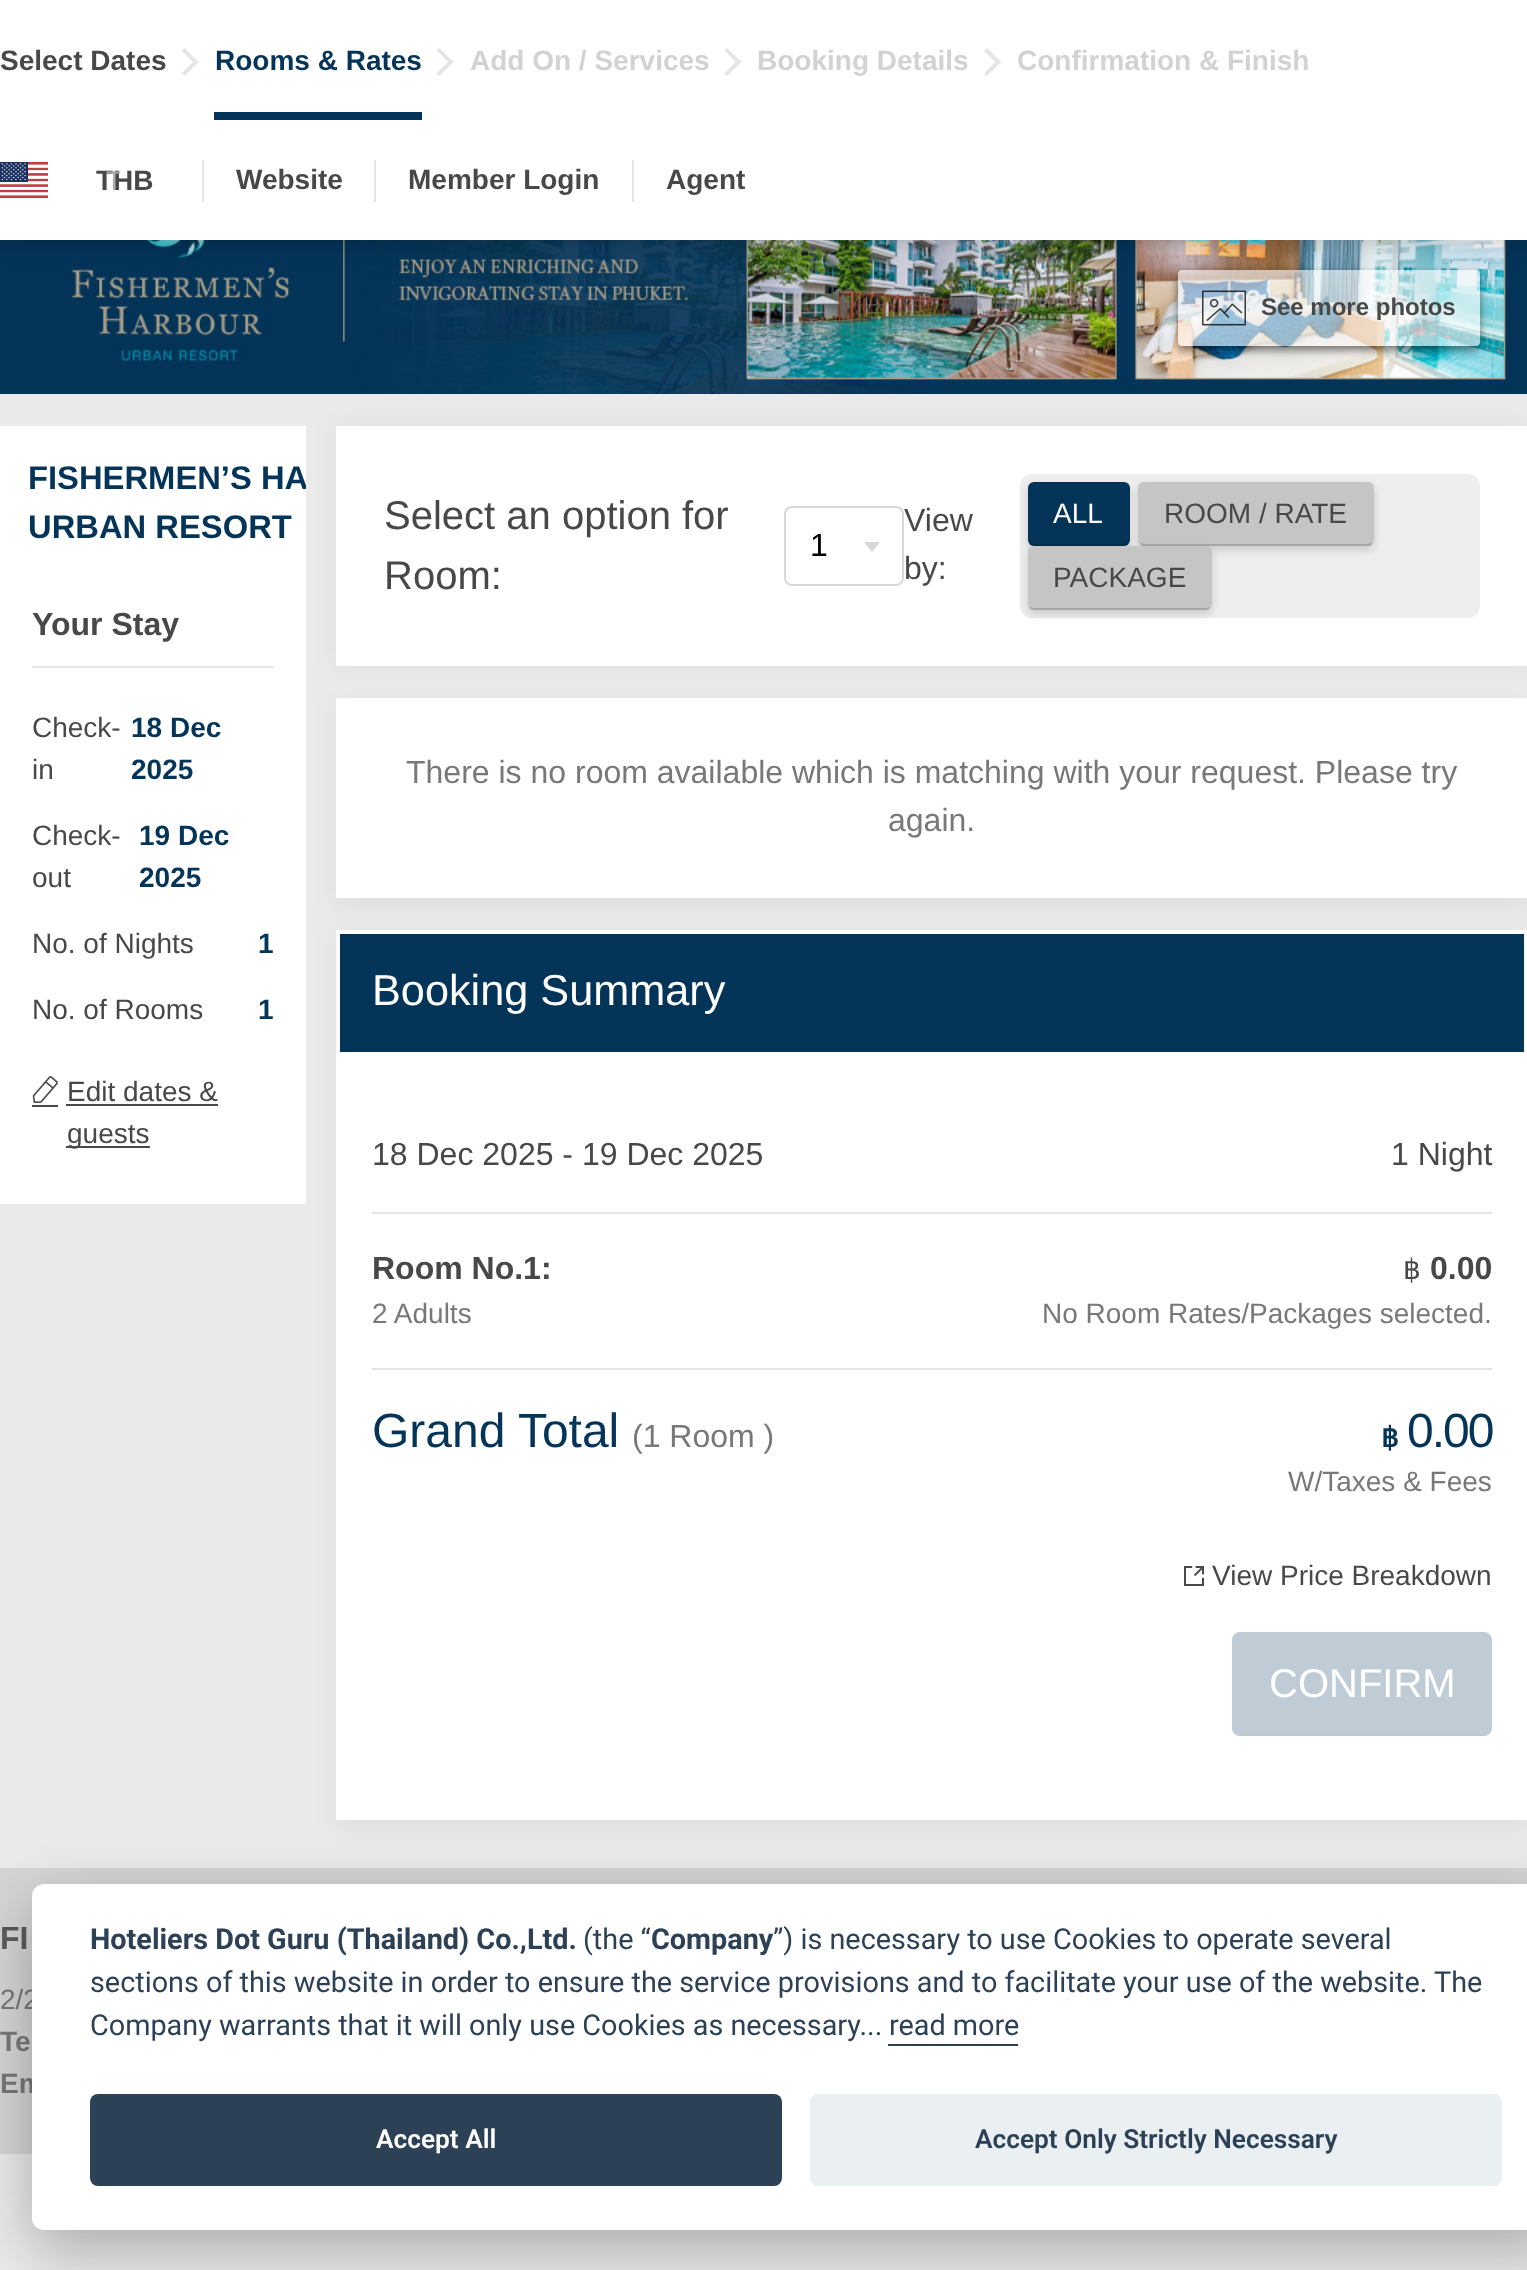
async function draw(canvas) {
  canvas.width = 1527
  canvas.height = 2270
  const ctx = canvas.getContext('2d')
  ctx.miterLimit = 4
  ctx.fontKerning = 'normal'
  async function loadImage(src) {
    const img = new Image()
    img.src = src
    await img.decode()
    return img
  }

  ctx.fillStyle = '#eaeaea'
  ctx.fillRect(0, 0, 1527, 2270)
  ctx.fillStyle = '#0000000d'
  ctx.filter = 'blur(12px)'
  ctx.beginPath()
  ctx.rect(336, 426, 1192, 240)
  ctx.fill()
  ctx.filter = 'none'
  ctx.drawImage(await loadImage('image1.png'), 0, 240, 1527, 154)
  ctx.save()
  ctx.beginPath()
  ctx.moveTo(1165, 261)
  ctx.lineTo(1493, 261)
  ctx.lineTo(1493, 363)
  ctx.lineTo(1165, 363)
  ctx.closePath()
  ctx.moveTo(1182, 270)
  ctx.lineTo(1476, 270)
  ctx.bezierCurveTo(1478, 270, 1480, 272, 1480, 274)
  ctx.lineTo(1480, 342)
  ctx.bezierCurveTo(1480, 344, 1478, 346, 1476, 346)
  ctx.lineTo(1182, 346)
  ctx.bezierCurveTo(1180, 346, 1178, 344, 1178, 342)
  ctx.lineTo(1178, 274)
  ctx.bezierCurveTo(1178, 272, 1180, 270, 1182, 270)
  ctx.closePath()
  ctx.clip('evenodd')
  ctx.fillStyle = '#00000080'
  ctx.filter = 'blur(4px)'
  ctx.beginPath()
  ctx.roundRect(1178, 274, 302, 76, 4)
  ctx.fill()
  ctx.filter = 'none'
  ctx.restore()
  ctx.fillStyle = '#ffffff99'
  ctx.beginPath()
  ctx.roundRect(1178, 270, 302, 76, 4)
  ctx.fill()
  ctx.fillStyle = '#00000040'
  ctx.filter = 'blur(12px)'
  ctx.beginPath()
  ctx.rect(0, 0, 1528, 240)
  ctx.fill()
  ctx.filter = 'none'
  ctx.fillStyle = '#fff'
  ctx.fillRect(0, 0, 1527, 240)
  ctx.font = 'bold 28px Liberation Sans'
  ctx.fillStyle = '#484848'
  ctx.fillText('Select Dates', 0, 70)
  ctx.fillStyle = '#e5e5e5'
  ctx.beginPath()
  ctx.moveTo(184.5, 48)
  ctx.lineTo(198.5, 62)
  ctx.lineTo(196, 65)
  ctx.lineTo(181.5, 50.5)
  ctx.closePath()
  ctx.fill()
  ctx.beginPath()
  ctx.moveTo(196, 59)
  ctx.lineTo(198.5, 62)
  ctx.lineTo(184.5, 76)
  ctx.lineTo(181.5, 73.5)
  ctx.closePath()
  ctx.fill()
  ctx.fillStyle = '#043458'
  ctx.fillRect(214, 112, 208, 8)
  ctx.fillText('Rooms & Rates', 215, 70)
  ctx.fillStyle = '#e5e5e5'
  ctx.beginPath()
  ctx.moveTo(439.5, 48)
  ctx.lineTo(453.5, 62)
  ctx.lineTo(451, 65)
  ctx.lineTo(436.5, 50.5)
  ctx.closePath()
  ctx.fill()
  ctx.beginPath()
  ctx.moveTo(451, 59)
  ctx.lineTo(453.5, 62)
  ctx.lineTo(439.5, 76)
  ctx.lineTo(436.5, 73.5)
  ctx.closePath()
  ctx.fill()
  ctx.fillStyle = '#d2d2d2'
  ctx.fillText('Add On / Services', 470, 70)
  ctx.fillStyle = '#e5e5e5'
  ctx.beginPath()
  ctx.moveTo(727, 48)
  ctx.lineTo(741.5, 62)
  ctx.lineTo(738.5, 65)
  ctx.lineTo(724.5, 50.5)
  ctx.closePath()
  ctx.fill()
  ctx.beginPath()
  ctx.moveTo(738.5, 59)
  ctx.lineTo(741.5, 62)
  ctx.lineTo(727, 76)
  ctx.lineTo(724.5, 73.5)
  ctx.closePath()
  ctx.fill()
  ctx.fillStyle = '#d2d2d2'
  ctx.fillText('Booking Details', 757, 70)
  ctx.fillStyle = '#e5e5e5'
  ctx.beginPath()
  ctx.moveTo(987, 48)
  ctx.lineTo(1001, 62)
  ctx.lineTo(998, 65)
  ctx.lineTo(984, 50.5)
  ctx.closePath()
  ctx.fill()
  ctx.beginPath()
  ctx.moveTo(998, 59)
  ctx.lineTo(1001, 62)
  ctx.lineTo(987, 76)
  ctx.lineTo(984, 73.5)
  ctx.closePath()
  ctx.fill()
  ctx.fillStyle = '#d2d2d2'
  ctx.fillText('Confirmation & Finish', 1017, 70)
  ctx.drawImage(await loadImage('image0.png'), 0, 162, 48, 36)
  ctx.fillStyle = '#484848'
  ctx.fillText('THB', 96, 190)
  ctx.save()
  ctx.beginPath()
  ctx.rect(106, 164, 14, 34)
  ctx.clip()
  ctx.font = '27px Liberation Sans'
  ctx.fillStyle = '#acacac'
  ctx.fillText('T', 106, 190)
  ctx.restore()
  ctx.fillStyle = '#e5e5e5'
  ctx.fillRect(202, 160, 2, 42)
  ctx.fillStyle = '#484848'
  ctx.fillText('Website', 236, 189)
  ctx.fillStyle = '#e5e5e5'
  ctx.fillRect(374, 160, 2, 42)
  ctx.fillStyle = '#484848'
  ctx.fillText('Member Login', 408, 189)
  ctx.fillStyle = '#e5e5e5'
  ctx.fillRect(632, 160, 2, 42)
  ctx.fillStyle = '#484848'
  ctx.fillText('Agent', 666, 189)
  ctx.drawImage(await loadImage('image2.png'), 1202, 290, 44, 36)
  ctx.font = 'bold 24px Liberation Sans'
  ctx.fillText('See more photos', 1261, 315)
  ctx.fillStyle = '#0000000d'
  ctx.filter = 'blur(12px)'
  ctx.beginPath()
  ctx.rect(336, 706, 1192, 200)
  ctx.fill()
  ctx.filter = 'none'
  ctx.filter = 'blur(12px)'
  ctx.beginPath()
  ctx.rect(336, 938, 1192, 890)
  ctx.fill()
  ctx.filter = 'none'
  ctx.fillStyle = '#fff'
  ctx.fillRect(0, 426, 306, 778)
  ctx.save()
  ctx.beginPath()
  ctx.rect(12, 438, 294, 124)
  ctx.clip()
  ctx.font = 'bold 32.75px Liberation Sans'
  ctx.fillStyle = '#043458'
  ctx.fillText('FISHERMEN’S HA', 28, 489)
  ctx.restore()
  ctx.font = 'bold 32.75px Liberation Sans'
  ctx.fillStyle = '#043458'
  ctx.fillText('URBAN RESORT', 28, 538)
  ctx.fillStyle = '#e5e5e5'
  ctx.fillRect(32, 666, 242, 2)
  ctx.font = 'bold 32px Liberation Sans'
  ctx.fillStyle = '#484848'
  ctx.fillText('Your Stay', 32, 635)
  ctx.font = '28px Liberation Sans'
  ctx.fillText('Check-', 32, 737)
  ctx.fillText('in', 32, 779)
  ctx.font = 'bold 28px Liberation Sans'
  ctx.fillStyle = '#043458'
  ctx.fillText('18 Dec', 131, 737)
  ctx.fillText('2025', 131, 779)
  ctx.font = '28px Liberation Sans'
  ctx.fillStyle = '#484848'
  ctx.fillText('Check-', 32, 845)
  ctx.fillText('out', 32, 887)
  ctx.font = 'bold 28px Liberation Sans'
  ctx.fillStyle = '#043458'
  ctx.fillText('19 Dec', 139, 845)
  ctx.fillText('2025', 139, 887)
  ctx.font = '28px Liberation Sans'
  ctx.fillStyle = '#484848'
  ctx.fillText('No. of Nights', 32, 953)
  ctx.font = 'bold 28px Liberation Sans'
  ctx.fillStyle = '#043458'
  ctx.fillText('1', 258, 953)
  ctx.font = '28px Liberation Sans'
  ctx.fillStyle = '#484848'
  ctx.fillText('No. of Rooms', 32, 1019)
  ctx.font = 'bold 28px Liberation Sans'
  ctx.fillStyle = '#043458'
  ctx.fillText('1', 258, 1019)
  ctx.drawImage(await loadImage('image3.png'), 32, 1076, 26, 31)
  ctx.font = '28px Liberation Sans'
  ctx.fillStyle = '#484848'
  ctx.fillText('Edit dates &', 67, 1101)
  ctx.fillStyle = '#4a4a4a'
  ctx.fillRect(66, 1104, 152, 2)
  ctx.fillRect(66, 1146, 84, 2)
  ctx.fillStyle = '#484848'
  ctx.fillText('guests', 67, 1143)
  ctx.fillStyle = '#fff'
  ctx.fillRect(336, 426, 1191, 240)
  ctx.font = '40px Liberation Sans'
  ctx.fillStyle = '#484848'
  ctx.fillText('Select an option for', 384, 529)
  ctx.fillText('Room:', 384, 589)
  ctx.beginPath()
  ctx.roundRect(785, 507, 118, 78, 7)
  ctx.strokeStyle = '#d8d8d8'
  ctx.lineWidth = 2
  ctx.stroke()
  ctx.font = '32px Liberation Sans'
  ctx.fillStyle = '#000'
  ctx.fillText('1', 810, 556)
  ctx.fillStyle = '#d8d8d8'
  ctx.beginPath()
  ctx.moveTo(864, 542)
  ctx.lineTo(880, 542)
  ctx.lineTo(872, 552)
  ctx.closePath()
  ctx.fill()
  ctx.fillStyle = '#484848'
  ctx.fillText('View', 904, 531)
  ctx.fillText('by:', 904, 579)
  ctx.fillStyle = '#eee'
  ctx.beginPath()
  ctx.roundRect(1020, 474, 460, 144, 12)
  ctx.fill()
  ctx.fillStyle = '#00000026'
  ctx.filter = 'blur(4px)'
  ctx.beginPath()
  ctx.roundRect(1028, 486, 102, 64, 6)
  ctx.fill()
  ctx.filter = 'none'
  ctx.fillStyle = '#043458'
  ctx.beginPath()
  ctx.roundRect(1028, 482, 102, 64, 6)
  ctx.fill()
  ctx.beginPath()
  ctx.moveTo(1127.5, 543.5)
  ctx.lineTo(1124.5, 545)
  ctx.lineTo(1033.5, 545)
  ctx.lineTo(1030.5, 543.5)
  ctx.strokeStyle = '#00000026'
  ctx.stroke()
  ctx.font = '28px Liberation Sans'
  ctx.fillStyle = '#fff'
  ctx.fillText('ALL', 1053, 523)
  ctx.fillStyle = '#00000026'
  ctx.filter = 'blur(4px)'
  ctx.beginPath()
  ctx.roundRect(1138, 486, 236, 64, 6)
  ctx.fill()
  ctx.filter = 'none'
  ctx.fillStyle = '#c5c5c5'
  ctx.beginPath()
  ctx.roundRect(1138, 482, 236, 64, 6)
  ctx.fill()
  ctx.beginPath()
  ctx.moveTo(1371.5, 543.5)
  ctx.bezierCurveTo(1370.5, 544.5, 1369.5, 545, 1368, 545)
  ctx.lineTo(1144, 545)
  ctx.bezierCurveTo(1142.5, 545, 1141.5, 544.5, 1140.5, 543.5)
  ctx.stroke()
  ctx.fillStyle = '#484848'
  ctx.fillText('ROOM / RATE', 1164, 523)
  ctx.fillStyle = '#00000026'
  ctx.filter = 'blur(4px)'
  ctx.beginPath()
  ctx.roundRect(1028, 550, 184, 64, 6)
  ctx.fill()
  ctx.filter = 'none'
  ctx.fillStyle = '#c5c5c5'
  ctx.beginPath()
  ctx.roundRect(1028, 546, 184, 64, 6)
  ctx.fill()
  ctx.beginPath()
  ctx.moveTo(1209.5, 607.5)
  ctx.bezierCurveTo(1208.5, 608.5, 1207.5, 609, 1206, 609)
  ctx.lineTo(1034, 609)
  ctx.bezierCurveTo(1032.5, 609, 1031.5, 608.5, 1030.5, 607.5)
  ctx.stroke()
  ctx.fillStyle = '#484848'
  ctx.fillText('PACKAGE', 1053, 587)
  ctx.fillStyle = '#fff'
  ctx.fillRect(336, 698, 1191, 200)
  ctx.font = '32px Liberation Sans'
  ctx.fillStyle = '#787878'
  ctx.fillText('There is no room available which is matching with your request. Please try', 406, 783)
  ctx.fillText('again.', 888, 831)
  ctx.fillStyle = '#fff'
  ctx.fillRect(336, 930, 1191, 890)
  ctx.fillStyle = '#043458'
  ctx.fillRect(340, 934, 1184, 118)
  ctx.font = '43.25px Liberation Sans'
  ctx.fillStyle = '#fff'
  ctx.fillText('Booking Summary', 372, 1005)
  ctx.fillStyle = '#e5e5e5'
  ctx.fillRect(372, 1212, 1120, 2)
  ctx.font = '32px Liberation Sans'
  ctx.fillStyle = '#484848'
  ctx.fillText('18 Dec 2025 - 19 Dec 2025', 372, 1165)
  ctx.fillText('1 Night', 1391, 1165)
  ctx.fillStyle = '#e5e5e5'
  ctx.fillRect(372, 1368, 1120, 2)
  ctx.font = 'bold 32px Liberation Sans'
  ctx.fillStyle = '#484848'
  ctx.fillText('Room No.1:', 372, 1279)
  ctx.font = '28px Liberation Sans'
  ctx.fillStyle = '#787878'
  ctx.fillText('2 Adults', 372, 1323)
  ctx.font = '28px DejaVu Sans'
  ctx.fillStyle = '#484848'
  ctx.fillText('฿', 1403, 1279)
  ctx.font = 'bold 32px Liberation Sans'
  ctx.fillText('0.00', 1430, 1279)
  ctx.font = '28px Liberation Sans'
  ctx.fillStyle = '#787878'
  ctx.fillText('No Room Rates/Packages selected.', 1042, 1323)
  ctx.font = '48px Liberation Sans'
  ctx.fillStyle = '#043458'
  ctx.fillText('Grand Total', 372, 1447)
  ctx.font = '32px Liberation Sans'
  ctx.fillStyle = '#787878'
  ctx.fillText('(1 Room )', 632, 1447)
  ctx.font = 'bold 28px DejaVu Sans'
  ctx.fillStyle = '#043458'
  ctx.fillText('฿', 1381, 1447)
  ctx.letterSpacing = '-2px'
  ctx.font = '48px Liberation Sans'
  ctx.fillText('0.00', 1407, 1447)
  ctx.letterSpacing = '0px'
  ctx.font = '28px Liberation Sans'
  ctx.fillStyle = '#787878'
  ctx.fillText('W/Taxes & Fees', 1288, 1491)
  ctx.drawImage(await loadImage('image4.png'), 1184, 1566, 20, 20)
  ctx.fillStyle = '#484848'
  ctx.fillText('View Price Breakdown', 1212, 1585)
  ctx.fillStyle = '#c0ccd5'
  ctx.beginPath()
  ctx.roundRect(1232, 1632, 260, 104, 8)
  ctx.fill()
  ctx.beginPath()
  ctx.moveTo(1489, 1733)
  ctx.bezierCurveTo(1487.5, 1734.5, 1486, 1735, 1484, 1735)
  ctx.lineTo(1240, 1735)
  ctx.bezierCurveTo(1238, 1735, 1236.5, 1734.5, 1235, 1733)
  ctx.strokeStyle = '#bfbfbf26'
  ctx.stroke()
  ctx.font = '40px Liberation Sans'
  ctx.fillStyle = '#fff'
  ctx.fillText('CONFIRM', 1269, 1697)
  ctx.fillStyle = '#d5d5d5'
  ctx.fillRect(0, 1868, 1527, 286)
  ctx.font = 'bold 32px Liberation Sans'
  ctx.fillStyle = '#5b5b5b'
  ctx.fillText('FI', 0, 1949)
  ctx.font = '28px Liberation Sans'
  ctx.fillStyle = '#787878'
  ctx.fillText('2/2', 0, 2009)
  ctx.font = 'bold 28px Liberation Sans'
  ctx.fillText('Te', 0, 2051)
  ctx.fillText('Em', 0, 2093)
  ctx.fillStyle = '#02020347'
  ctx.filter = 'blur(30px)'
  ctx.beginPath()
  ctx.roundRect(32, 1904, 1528, 346, 12)
  ctx.fill()
  ctx.filter = 'none'
  ctx.fillStyle = '#fff'
  ctx.beginPath()
  ctx.roundRect(32, 1884, 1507, 346, 12)
  ctx.fill()
  ctx.font = 'bold 28.8px Roboto'
  ctx.fillStyle = '#2d4156'
  ctx.fillText('Hoteliers Dot Guru (Thailand) Co.,Ltd.', 90, 1949)
  ctx.font = '28.8px Roboto'
  ctx.fillText('(the “', 583, 1949)
  ctx.font = 'bold 28.8px Roboto'
  ctx.fillText('Company', 651, 1949)
  ctx.font = '28.8px Roboto'
  ctx.fillText('”) is necessary to use Cookies to operate several', 773, 1949)
  ctx.fillText('sections of this website in order to ensure the service provisions and to facilitate your use of the website. The', 90, 1992)
  ctx.fillText('Company warrants that it will only use Cookies as necessary...', 90, 2035)
  ctx.fillText('read more', 889, 2035)
  ctx.fillRect(888, 2044, 130, 2)
  ctx.beginPath()
  ctx.roundRect(90, 2094, 692, 92, 8)
  ctx.fill()
  ctx.font = '600 26.25px Roboto'
  ctx.fillStyle = '#fff'
  ctx.fillText('Accept All', 376, 2148)
  ctx.fillStyle = '#eaeff2'
  ctx.beginPath()
  ctx.roundRect(810, 2094, 692, 92, 8)
  ctx.fill()
  ctx.fillStyle = '#2d4156'
  ctx.fillText('Accept Only Strictly Necessary', 975, 2148)
}

draw(document.querySelector('canvas'))
